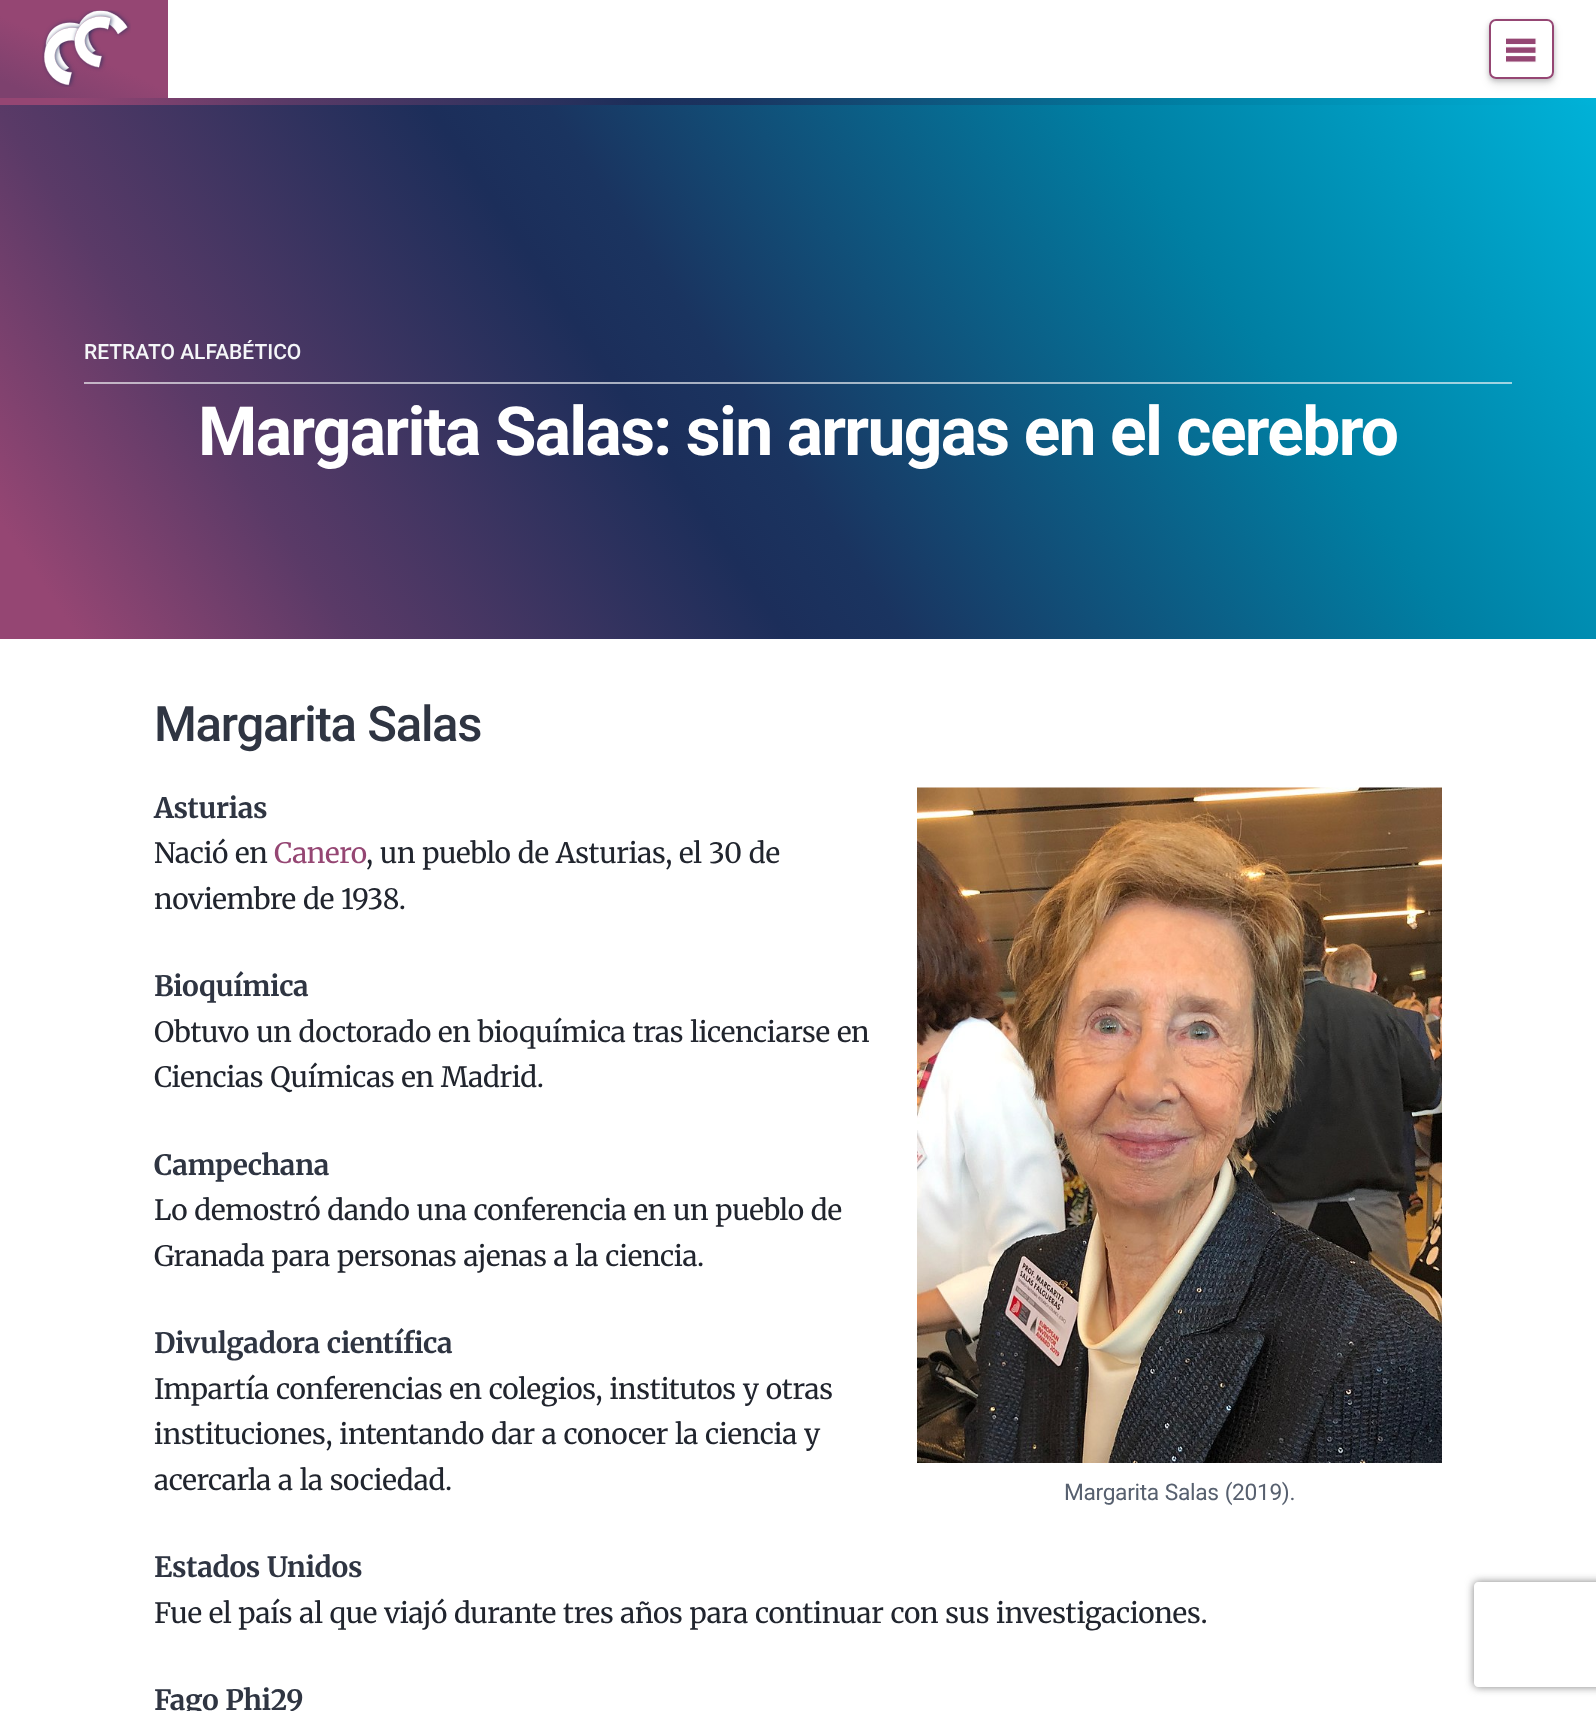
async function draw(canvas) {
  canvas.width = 1596
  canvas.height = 1711
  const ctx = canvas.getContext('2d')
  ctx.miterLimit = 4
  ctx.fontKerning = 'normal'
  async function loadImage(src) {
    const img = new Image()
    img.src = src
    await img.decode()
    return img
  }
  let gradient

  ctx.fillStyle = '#fff'
  ctx.fillRect(0, 0, 1596, 1711)
  gradient = ctx.createLinearGradient(52, 121, 116, -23)
  gradient.addColorStop(0.1, '#7d416e')
  gradient.addColorStop(0.48, '#954673')
  ctx.fillStyle = gradient
  ctx.fillRect(0, 0, 168, 98)
  ctx.drawImage(await loadImage('image0.png'), 42, 10, 89, 77)
  ctx.save()
  ctx.beginPath()
  ctx.moveTo(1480, 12)
  ctx.lineTo(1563, 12)
  ctx.lineTo(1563, 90)
  ctx.lineTo(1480, 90)
  ctx.closePath()
  ctx.moveTo(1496, 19)
  ctx.lineTo(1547, 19)
  ctx.bezierCurveTo(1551, 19, 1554, 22, 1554, 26)
  ctx.lineTo(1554, 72)
  ctx.bezierCurveTo(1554, 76, 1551, 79, 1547, 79)
  ctx.lineTo(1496, 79)
  ctx.bezierCurveTo(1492, 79, 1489, 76, 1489, 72)
  ctx.lineTo(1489, 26)
  ctx.bezierCurveTo(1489, 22, 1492, 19, 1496, 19)
  ctx.closePath()
  ctx.clip('evenodd')
  ctx.fillStyle = '#06070933'
  ctx.filter = 'blur(2.5px)'
  ctx.beginPath()
  ctx.roundRect(1489, 21, 65, 60, 7)
  ctx.fill()
  ctx.filter = 'none'
  ctx.restore()
  gradient = ctx.createLinearGradient(248, 473, 1348, -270)
  gradient.addColorStop(0.04, '#954673')
  gradient.addColorStop(0.18, '#5a3a67')
  gradient.addColorStop(0.4, '#1c2e5a')
  gradient.addColorStop(0.46, '#1a3460')
  gradient.addColorStop(0.56, '#114f78')
  gradient.addColorStop(0.74, '#007fa3')
  gradient.addColorStop(1, '#00b3d9')
  ctx.fillStyle = gradient
  ctx.fillRect(0, 98, 1596, 7)
  ctx.save()
  ctx.beginPath()
  ctx.moveTo(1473, 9)
  ctx.lineTo(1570, 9)
  ctx.lineTo(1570, 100)
  ctx.lineTo(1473, 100)
  ctx.closePath()
  ctx.moveTo(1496, 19)
  ctx.lineTo(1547, 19)
  ctx.bezierCurveTo(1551, 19, 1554, 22, 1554, 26)
  ctx.lineTo(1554, 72)
  ctx.bezierCurveTo(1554, 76, 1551, 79, 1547, 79)
  ctx.lineTo(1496, 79)
  ctx.bezierCurveTo(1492, 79, 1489, 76, 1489, 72)
  ctx.lineTo(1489, 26)
  ctx.bezierCurveTo(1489, 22, 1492, 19, 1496, 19)
  ctx.closePath()
  ctx.clip('evenodd')
  ctx.fillStyle = '#0607091a'
  ctx.filter = 'blur(5px)'
  ctx.beginPath()
  ctx.roundRect(1489, 25, 65, 59, 7)
  ctx.fill()
  ctx.filter = 'none'
  ctx.restore()
  ctx.beginPath()
  ctx.roundRect(1490, 20, 63, 58, 6)
  ctx.strokeStyle = '#954673'
  ctx.lineWidth = 2
  ctx.stroke()
  ctx.drawImage(await loadImage('image1.png'), 1505, 38, 32, 25)
  gradient = ctx.createLinearGradient(121, 818, 1475, -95)
  gradient.addColorStop(0.04, '#954673')
  gradient.addColorStop(0.18, '#5a3a67')
  gradient.addColorStop(0.4, '#1c2e5a')
  gradient.addColorStop(0.46, '#1a3460')
  gradient.addColorStop(0.56, '#114f78')
  gradient.addColorStop(0.74, '#007fa3')
  gradient.addColorStop(1, '#00b3d9')
  ctx.fillStyle = gradient
  ctx.fillRect(0, 105, 1596, 534)
  gradient = ctx.createLinearGradient(121, 818, 1475, -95)
  gradient.addColorStop(0.04, '#d3b8c9')
  gradient.addColorStop(0.18, '#beb4c5')
  gradient.addColorStop(0.4, '#a8b0c1')
  gradient.addColorStop(0.46, '#a8b2c3')
  gradient.addColorStop(0.56, '#a5bccb')
  gradient.addColorStop(0.74, '#9fccda')
  gradient.addColorStop(1, '#9fdfed')
  ctx.fillStyle = gradient
  ctx.fillRect(84, 382, 1428, 2)
  ctx.font = '500 21px Roboto'
  ctx.fillStyle = '#f4f6f8'
  ctx.fillText('RETRATO ALFABÉTICO', 84, 359)
  ctx.letterSpacing = '-1.7px'
  ctx.font = 'bold 67.8px Roboto'
  ctx.fillStyle = '#fff'
  ctx.fillText('Margarita Salas: sin arrugas en el cerebro', 198, 455)
  ctx.letterSpacing = '-1.25px'
  ctx.wordSpacing = '0.75px'
  ctx.font = '500 49px Roboto'
  ctx.fillStyle = '#2f3542'
  ctx.fillText('Margarita Salas', 154, 741)
  ctx.letterSpacing = '-0.35px'
  ctx.wordSpacing = '0px'
  ctx.font = 'bold 28px Merriweather'
  ctx.fillText('Asturias', 154, 818)
  ctx.wordSpacing = '0.75px'
  ctx.font = '28px Merriweather'
  ctx.fillStyle = '#21252e'
  ctx.fillText('Nació en', 154, 863)
  ctx.wordSpacing = '0px'
  ctx.fillStyle = '#954673'
  ctx.fillText('Canero', 274, 863)
  ctx.wordSpacing = '0.75px'
  ctx.fillStyle = '#21252e'
  ctx.fillText(', un pueblo de Asturias, el 30 de', 366, 863)
  ctx.fillText('noviembre de 1938.', 154, 909)
  ctx.wordSpacing = '0px'
  ctx.font = 'bold 28px Merriweather'
  ctx.fillStyle = '#2f3542'
  ctx.fillText('Bioquímica', 154, 996)
  ctx.wordSpacing = '0.75px'
  ctx.font = '28px Merriweather'
  ctx.fillStyle = '#21252e'
  ctx.fillText('Obtuvo un doctorado en bioquímica tras licenciarse en', 154, 1042)
  ctx.fillText('Ciencias Químicas en Madrid.', 154, 1087)
  ctx.wordSpacing = '0px'
  ctx.font = 'bold 28px Merriweather'
  ctx.fillStyle = '#2f3542'
  ctx.fillText('Campechana', 154, 1175)
  ctx.wordSpacing = '0.75px'
  ctx.font = '28px Merriweather'
  ctx.fillStyle = '#21252e'
  ctx.fillText('Lo demostró dando una conferencia en un pueblo de', 154, 1220)
  ctx.fillText('Granada para personas ajenas a la ciencia.', 154, 1266)
  ctx.font = 'bold 28px Merriweather'
  ctx.fillStyle = '#2f3542'
  ctx.fillText('Divulgadora científica', 154, 1353)
  ctx.font = '28px Merriweather'
  ctx.fillStyle = '#21252e'
  ctx.fillText('Impartía conferencias en colegios, institutos y otras', 154, 1399)
  ctx.fillText('instituciones, intentando dar a conocer la ciencia y', 154, 1444)
  ctx.fillText('acercarla a la sociedad.', 154, 1490)
  ctx.drawImage(await loadImage('image2.png'), 917, 787, 525, 676)
  ctx.font = '22.75px Roboto'
  ctx.fillStyle = '#57606f'
  ctx.fillText('Margarita Salas (2019).', 1064, 1500)
  ctx.font = 'bold 28px Merriweather'
  ctx.fillStyle = '#2f3542'
  ctx.fillText('Estados Unidos', 154, 1577)
  ctx.font = '28px Merriweather'
  ctx.fillStyle = '#21252e'
  ctx.fillText('Fue el país al que viajó durante tres años para continuar con sus investigaciones.', 154, 1623)
  ctx.font = 'bold 28px Merriweather'
  ctx.fillStyle = '#2f3542'
  ctx.fillText('Fago Phi29', 154, 1710)
  ctx.save()
  ctx.beginPath()
  ctx.moveTo(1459, 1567)
  ctx.lineTo(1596, 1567)
  ctx.lineTo(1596, 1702)
  ctx.lineTo(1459, 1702)
  ctx.closePath()
  ctx.moveTo(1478, 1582)
  ctx.lineTo(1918, 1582)
  ctx.bezierCurveTo(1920, 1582, 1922, 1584, 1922, 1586)
  ctx.lineTo(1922, 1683)
  ctx.bezierCurveTo(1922, 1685, 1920, 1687, 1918, 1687)
  ctx.lineTo(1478, 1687)
  ctx.bezierCurveTo(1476, 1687, 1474, 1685, 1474, 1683)
  ctx.lineTo(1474, 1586)
  ctx.bezierCurveTo(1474, 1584, 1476, 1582, 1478, 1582)
  ctx.closePath()
  ctx.clip('evenodd')
  ctx.fillStyle = '#808080'
  ctx.filter = 'blur(4.5px)'
  ctx.beginPath()
  ctx.roundRect(1474, 1582, 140, 105, 4)
  ctx.fill()
  ctx.filter = 'none'
  ctx.restore()
}

draw(document.querySelector('canvas'))
